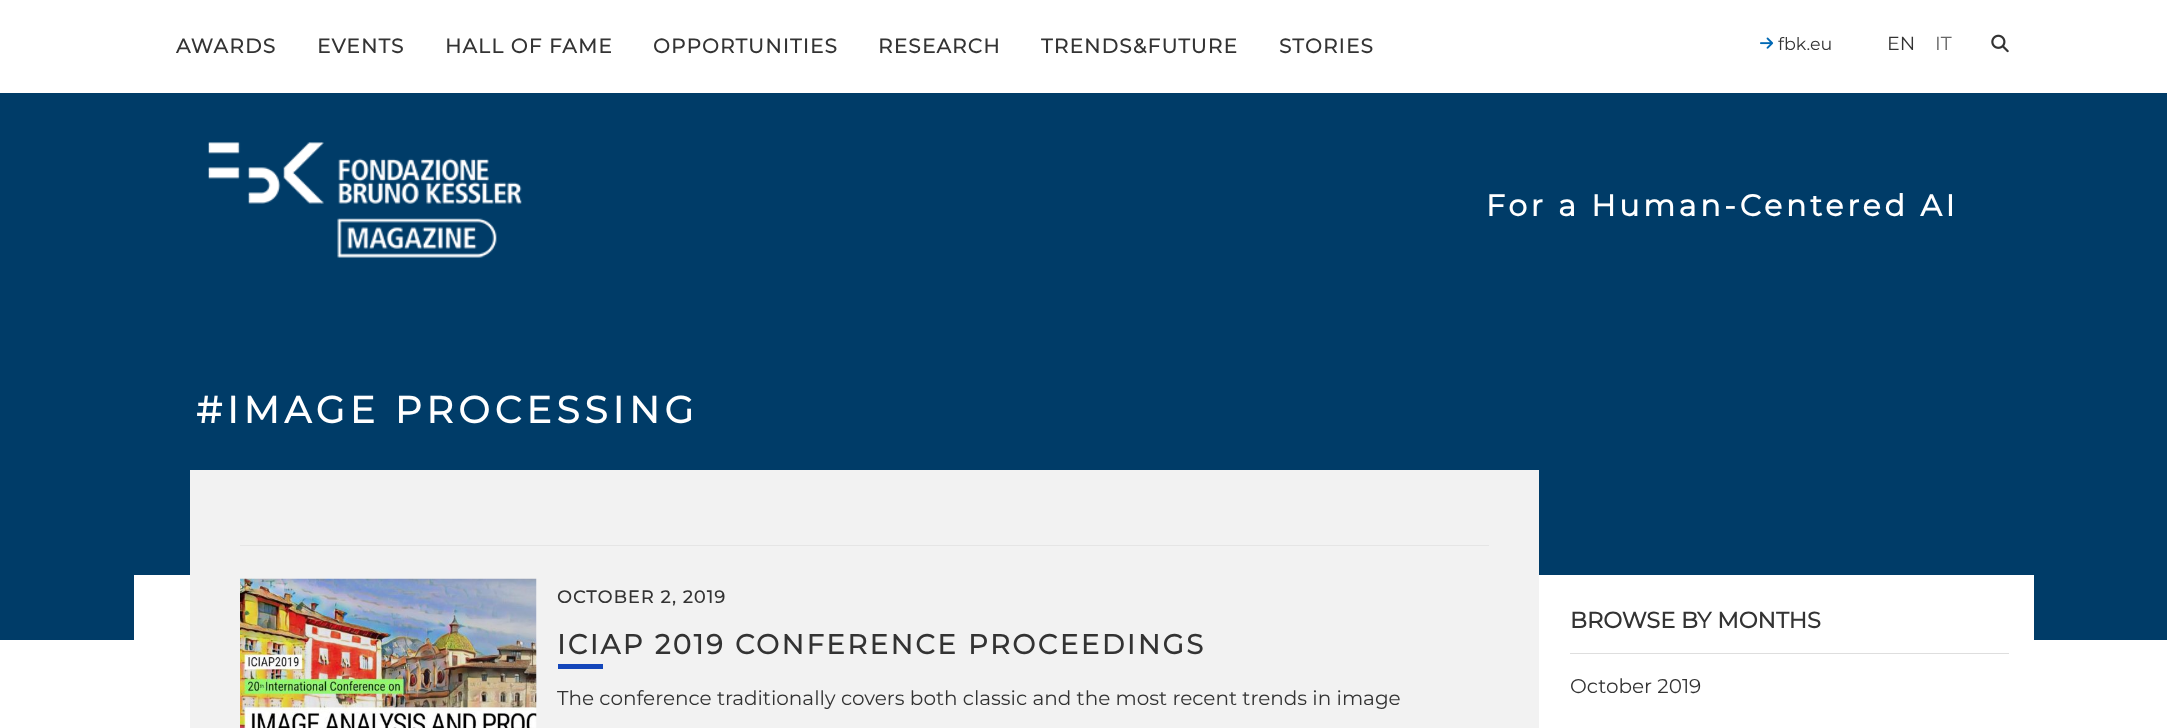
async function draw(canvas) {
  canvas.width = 2167
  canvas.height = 728
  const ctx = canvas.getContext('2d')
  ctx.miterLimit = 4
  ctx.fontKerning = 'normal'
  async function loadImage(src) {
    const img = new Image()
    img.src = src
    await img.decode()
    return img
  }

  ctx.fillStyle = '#fff'
  ctx.fillRect(0, 0, 2167, 728)
  ctx.letterSpacing = '1.25px'
  ctx.font = 'bold 20px Montserrat'
  ctx.fillStyle = '#333'
  ctx.fillText('AWARDS', 176, 53)
  ctx.fillText('EVENTS', 317, 53)
  ctx.fillText('HALL OF FAME', 445, 53)
  ctx.fillText('OPPORTUNITIES', 653, 53)
  ctx.fillText('RESEARCH', 878, 53)
  ctx.fillText('TRENDS&FUTURE', 1041, 53)
  ctx.fillText('STORIES', 1279, 53)
  ctx.drawImage(await loadImage('image0.png'), 1760, 37, 14, 12)
  ctx.letterSpacing = '0px'
  ctx.font = '100 17.5px Montserrat'
  ctx.fillText('fbk.eu', 1778, 50)
  ctx.font = '100 19px Montserrat'
  ctx.fillText('EN', 1887, 50)
  ctx.fillStyle = '#666'
  ctx.fillText('IT', 1935, 50)
  ctx.drawImage(await loadImage('image1.png'), 1991, 34, 18, 19)
  ctx.fillStyle = '#003c68'
  ctx.fillRect(0, 93, 2167, 547)
  ctx.drawImage(await loadImage('image2.png'), 208, 142, 314, 116)
  ctx.letterSpacing = '3.75px'
  ctx.font = 'bold 30px Montserrat'
  ctx.fillStyle = '#fff'
  ctx.fillText('For a Human-Centered AI', 1486, 216)
  ctx.fillRect(134, 575, 1900, 65)
  ctx.letterSpacing = '5px'
  ctx.font = 'bold 37.5px Montserrat'
  ctx.fillText('#IMAGE PROCESSING', 196, 423)
  ctx.fillStyle = '#f2f2f2'
  ctx.fillRect(190, 470, 1349, 258)
  ctx.fillStyle = '#e5e5e5'
  ctx.fillRect(240, 545, 1249, 1)
  ctx.drawImage(await loadImage('image3.png'), 240, 578, 297, 150)
  ctx.letterSpacing = '1.25px'
  ctx.font = 'bold 17.5px Montserrat'
  ctx.fillStyle = '#333'
  ctx.fillText('OCTOBER 2, 2019', 557, 603)
  ctx.letterSpacing = '2.5px'
  ctx.font = 'bold 27.5px Montserrat'
  ctx.fillText('ICIAP 2019 CONFERENCE PROCEEDINGS', 557, 654)
  ctx.fillStyle = '#1447bb'
  ctx.fillRect(558, 664, 45, 5)
  ctx.letterSpacing = '0px'
  ctx.font = '100 20px Montserrat'
  ctx.fillStyle = '#333'
  ctx.fillText('The conference traditionally covers both classic and the most recent trends in image', 557, 705)
  ctx.fillStyle = '#dedede'
  ctx.fillRect(1570, 653, 439, 1)
  ctx.font = 'bold 22.5px Montserrat'
  ctx.fillStyle = '#333'
  ctx.fillText('BROWSE BY MONTHS', 1570, 628)
  ctx.font = '100 20px Montserrat'
  ctx.fillText('October 2019', 1570, 693)
}

draw(document.querySelector('canvas'))
